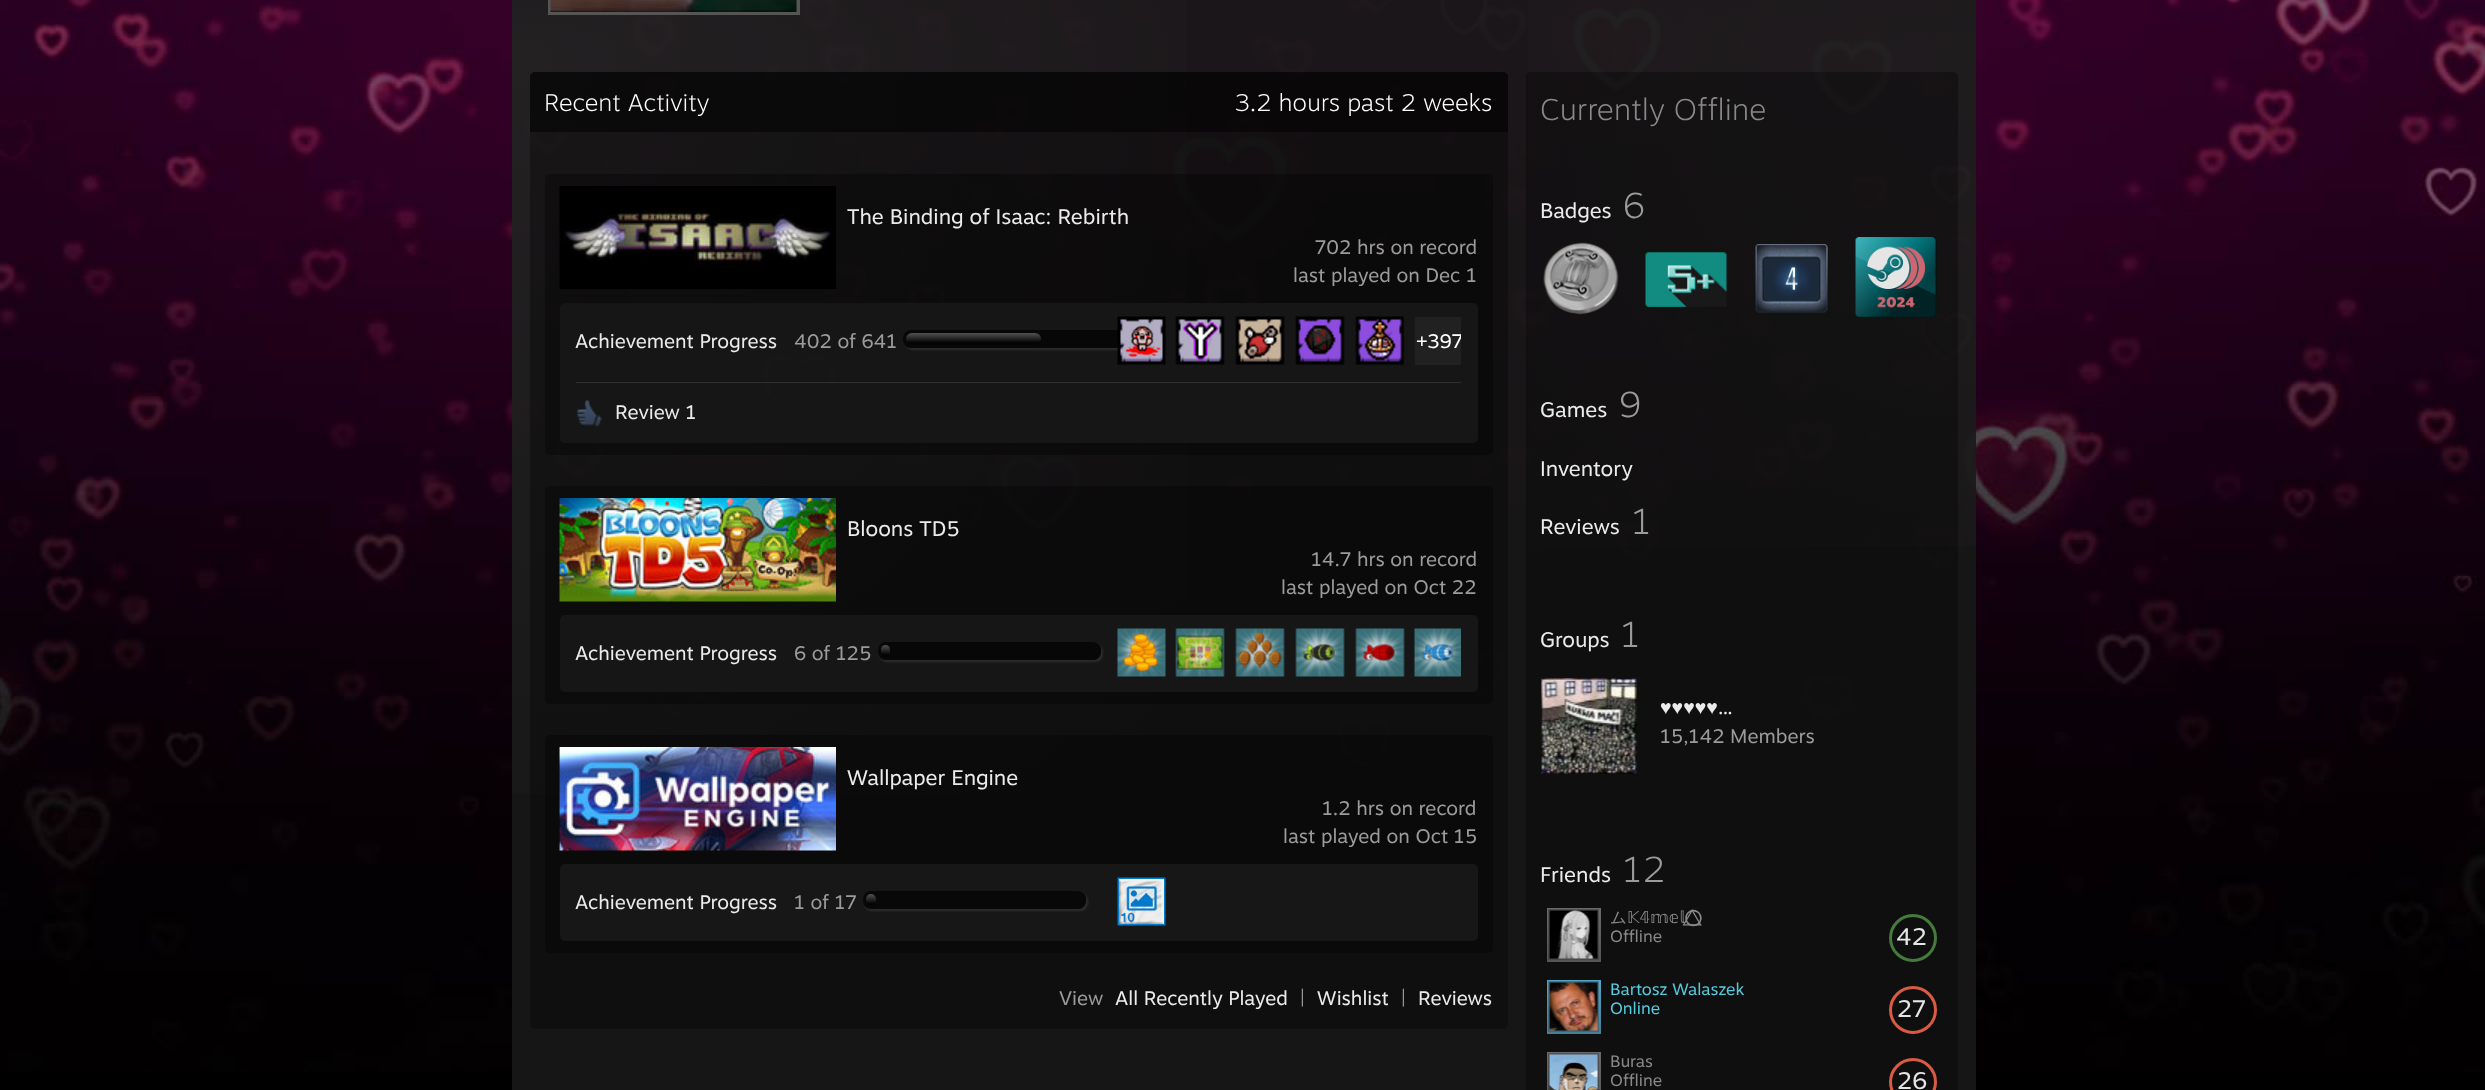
async function draw(canvas) {
  canvas.width = 2485
  canvas.height = 1090
  const ctx = canvas.getContext('2d')
  ctx.miterLimit = 4
  ctx.fontKerning = 'normal'
  async function loadImage(src) {
    const img = new Image()
    img.src = src
    await img.decode()
    return img
  }
  let gradient

  ctx.fillStyle = '#000'
  ctx.fillRect(0, 0, 2485, 1090)
  ctx.drawImage(await loadImage('image0.png'), 0, 0, 2485, 1072)
  ctx.fillStyle = '#181818ed'
  ctx.fillRect(512, 0, 1464, 48)
  gradient = ctx.createRadialGradient(512, 209.18, 0, 512, 209.18, 2070)
  gradient.addColorStop(0, '#3333335e')
  gradient.addColorStop(0.43, '#33333300')
  ctx.fillStyle = gradient
  ctx.beginPath()
  ctx.rect(512, 0, 675, 48)
  ctx.save()
  ctx.clip()
  ctx.scale(1, 475 / 2070)
  ctx.fillRect(0, 0, 2485, 4751)
  ctx.restore()
  gradient = ctx.createRadialGradient(1976, 209.14, 0, 1976, 209.14, 1464)
  gradient.addColorStop(0, '#3131313b')
  gradient.addColorStop(0.51, '#31313100')
  ctx.fillStyle = gradient
  ctx.beginPath()
  ctx.rect(1528, 0, 448, 48)
  ctx.save()
  ctx.clip()
  ctx.scale(1, 336 / 1464)
  ctx.fillRect(0, 0, 2485, 4750)
  ctx.restore()
  gradient = ctx.createLinearGradient(674, -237, 674, 15)
  gradient.addColorStop(0.05, '#6a6a6a')
  gradient.addColorStop(0.95, '#555')
  ctx.fillStyle = gradient
  ctx.fillRect(548, 0, 252, 15)
  ctx.drawImage(await loadImage('image1.png'), 550, 0, 247, 12)
  ctx.fillStyle = '#181818ed'
  ctx.fillRect(512, 48, 1464, 1042)
  gradient = ctx.createRadialGradient(512, 43.37, 0, 512, 43.37, 2070)
  gradient.addColorStop(0, '#3333335e')
  gradient.addColorStop(0.43, '#33333300')
  ctx.fillStyle = gradient
  ctx.beginPath()
  ctx.rect(512, 48, 675, 746)
  ctx.save()
  ctx.clip()
  ctx.scale(1, 2291 / 2070)
  ctx.fillRect(0, 0, 2485, 985)
  ctx.restore()
  gradient = ctx.createRadialGradient(1976, 43.38, 0, 1976, 43.38, 1464)
  gradient.addColorStop(0, '#3131313b')
  gradient.addColorStop(0.51, '#31313100')
  ctx.fillStyle = gradient
  ctx.beginPath()
  ctx.rect(1528, 48, 448, 498)
  ctx.save()
  ctx.clip()
  ctx.scale(1, 1620 / 1464)
  ctx.fillRect(0, 0, 2485, 986)
  ctx.restore()
  ctx.fillStyle = '#0000004d'
  ctx.beginPath()
  ctx.roundRect(530, 72, 978, 957, 5)
  ctx.fill()
  ctx.fillStyle = '#00000080'
  ctx.beginPath()
  ctx.roundRect(530, 72, 978, 60, [5, 5, 0, 0])
  ctx.fill()
  ctx.font = '100 24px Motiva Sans'
  ctx.fillStyle = '#fff'
  ctx.fillText('Recent Activity', 544, 111)
  ctx.fillText('3.2 hours past 2 weeks', 1235, 111)
  ctx.fillStyle = '#0000004d'
  ctx.beginPath()
  ctx.roundRect(545, 174, 948, 281, 5)
  ctx.fill()
  ctx.drawImage(await loadImage('image2.png'), 559, 186, 277, 103)
  ctx.font = '21px Motiva Sans'
  ctx.fillStyle = '#ebebeb'
  ctx.fillText('The Binding of Isaac: Rebirth', 847, 224)
  ctx.font = '19.5px Motiva Sans'
  ctx.fillStyle = '#9b9b9b'
  ctx.fillText('702 hrs on record', 1315, 254)
  ctx.fillText('last played on Dec 1', 1293, 282)
  ctx.fillStyle = '#181818ed'
  ctx.beginPath()
  ctx.roundRect(560, 303, 918, 140, 5)
  ctx.fill()
  ctx.fillStyle = '#ebebeb'
  ctx.fillText('Achievement Progress', 575, 348)
  ctx.fillStyle = '#9b9b9b'
  ctx.fillText('402 of 641', 794, 348)
  ctx.save()
  ctx.beginPath()
  ctx.moveTo(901, 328)
  ctx.lineTo(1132, 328)
  ctx.lineTo(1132, 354)
  ctx.lineTo(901, 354)
  ctx.closePath()
  ctx.moveTo(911, 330)
  ctx.lineTo(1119, 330)
  ctx.bezierCurveTo(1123.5, 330, 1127, 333.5, 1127, 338)
  ctx.lineTo(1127, 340)
  ctx.bezierCurveTo(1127, 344.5, 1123.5, 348, 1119, 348)
  ctx.lineTo(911, 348)
  ctx.bezierCurveTo(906.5, 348, 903, 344.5, 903, 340)
  ctx.lineTo(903, 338)
  ctx.bezierCurveTo(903, 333.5, 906.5, 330, 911, 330)
  ctx.closePath()
  ctx.clip('evenodd')
  ctx.fillStyle = '#ffffff1a'
  ctx.filter = 'blur(1px)'
  ctx.beginPath()
  ctx.roundRect(905, 332, 223, 18, 8)
  ctx.fill()
  ctx.filter = 'none'
  ctx.restore()
  ctx.fillStyle = '#0000004d'
  ctx.beginPath()
  ctx.roundRect(903, 330, 224, 18, 8)
  ctx.fill()
  ctx.fillStyle = '#00000080'
  ctx.beginPath()
  ctx.moveTo(911, 330)
  ctx.lineTo(1119, 330)
  ctx.lineTo(1122, 331)
  ctx.bezierCurveTo(1125, 332, 1126, 334, 1127, 336)
  ctx.bezierCurveTo(1128, 342, 1125, 348, 1119, 348)
  ctx.lineTo(911, 348)
  ctx.lineTo(907, 347)
  ctx.bezierCurveTo(900, 342, 903, 330, 911, 330)
  ctx.closePath()
  ctx.fill()
  gradient = ctx.createLinearGradient(974, 333, 974, 345)
  gradient.addColorStop(0, '#525252')
  gradient.addColorStop(0.8, '#040404')
  ctx.fillStyle = gradient
  ctx.beginPath()
  ctx.roundRect(906, 333, 135, 12, 6)
  ctx.fill()
  ctx.drawImage(await loadImage('image3.png'), 1117, 316, 49, 49)
  ctx.drawImage(await loadImage('image4.png'), 1175, 316, 50, 49)
  ctx.drawImage(await loadImage('image5.png'), 1235, 316, 50, 49)
  ctx.drawImage(await loadImage('image6.png'), 1295, 316, 50, 49)
  ctx.drawImage(await loadImage('image7.png'), 1355, 316, 49, 49)
  ctx.save()
  ctx.beginPath()
  ctx.rect(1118, 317, 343, 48)
  ctx.clip()
  ctx.fillStyle = '#353535'
  ctx.filter = 'blur(1px)'
  ctx.beginPath()
  ctx.rect(1416, 318, 48, 48)
  ctx.fill()
  ctx.filter = 'none'
  ctx.restore()
  ctx.fillStyle = '#212121'
  ctx.fillRect(1415, 317, 46, 48)
  ctx.save()
  ctx.beginPath()
  ctx.rect(1118, 317, 343, 48)
  ctx.clip()
  ctx.fillStyle = '#fff'
  ctx.fillText('+397', 1416, 348)
  ctx.restore()
  ctx.fillStyle = '#2e2e2e'
  ctx.fillRect(576, 382, 885, 1)
  ctx.drawImage(await loadImage('image8.png'), 576, 400, 26, 27)
  ctx.fillStyle = '#ebebeb'
  ctx.fillText('Review 1', 615, 419)
  ctx.fillStyle = '#0000004d'
  ctx.beginPath()
  ctx.roundRect(545, 486, 948, 218, 5)
  ctx.fill()
  ctx.drawImage(await loadImage('image9.png'), 559, 498, 277, 104)
  ctx.font = '21px Motiva Sans'
  ctx.fillStyle = '#ebebeb'
  ctx.fillText('Bloons TD5', 847, 536)
  ctx.font = '19.5px Motiva Sans'
  ctx.fillStyle = '#9b9b9b'
  ctx.fillText('14.7 hrs on record', 1311, 566)
  ctx.fillText('last played on Oct 22', 1281, 594)
  ctx.fillStyle = '#181818ed'
  ctx.beginPath()
  ctx.roundRect(560, 615, 918, 77, 5)
  ctx.fill()
  ctx.fillStyle = '#ebebeb'
  ctx.fillText('Achievement Progress', 575, 660)
  ctx.fillStyle = '#9b9b9b'
  ctx.fillText('6 of 125', 794, 660)
  ctx.save()
  ctx.beginPath()
  ctx.moveTo(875, 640)
  ctx.lineTo(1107, 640)
  ctx.lineTo(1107, 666)
  ctx.lineTo(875, 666)
  ctx.closePath()
  ctx.moveTo(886, 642)
  ctx.lineTo(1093, 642)
  ctx.bezierCurveTo(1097.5, 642, 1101, 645.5, 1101, 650)
  ctx.lineTo(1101, 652)
  ctx.bezierCurveTo(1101, 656.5, 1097.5, 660, 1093, 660)
  ctx.lineTo(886, 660)
  ctx.bezierCurveTo(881.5, 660, 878, 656.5, 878, 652)
  ctx.lineTo(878, 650)
  ctx.bezierCurveTo(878, 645.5, 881.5, 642, 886, 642)
  ctx.closePath()
  ctx.clip('evenodd')
  ctx.fillStyle = '#ffffff1a'
  ctx.filter = 'blur(1px)'
  ctx.beginPath()
  ctx.roundRect(879, 644, 224, 18, 8)
  ctx.fill()
  ctx.filter = 'none'
  ctx.restore()
  ctx.fillStyle = '#0000004d'
  ctx.beginPath()
  ctx.roundRect(878, 642, 223, 18, 8)
  ctx.fill()
  ctx.fillStyle = '#00000080'
  ctx.beginPath()
  ctx.moveTo(886, 642)
  ctx.lineTo(1093, 642)
  ctx.lineTo(1096, 643)
  ctx.bezierCurveTo(1099, 644, 1100, 646, 1101, 648)
  ctx.bezierCurveTo(1102, 654, 1099, 660, 1093, 660)
  ctx.lineTo(886, 660)
  ctx.lineTo(882, 659)
  ctx.bezierCurveTo(875, 654, 878, 642, 886, 642)
  ctx.closePath()
  ctx.fill()
  gradient = ctx.createLinearGradient(885, 645, 885, 657)
  gradient.addColorStop(0, '#525252')
  gradient.addColorStop(0.8, '#040404')
  ctx.fillStyle = gradient
  ctx.beginPath()
  ctx.roundRect(881, 645, 9, 12, 4.5)
  ctx.fill()
  ctx.drawImage(await loadImage('image10.png'), 1117, 628, 49, 49)
  ctx.drawImage(await loadImage('image11.png'), 1175, 628, 50, 49)
  ctx.drawImage(await loadImage('image12.png'), 1235, 628, 50, 49)
  ctx.drawImage(await loadImage('image13.png'), 1295, 628, 50, 49)
  ctx.drawImage(await loadImage('image14.png'), 1355, 628, 50, 49)
  ctx.drawImage(await loadImage('image15.png'), 1414, 628, 47, 49)
  ctx.fillStyle = '#0000004d'
  ctx.beginPath()
  ctx.roundRect(545, 735, 948, 218, 5)
  ctx.fill()
  ctx.drawImage(await loadImage('image16.png'), 559, 747, 277, 104)
  ctx.font = '21px Motiva Sans'
  ctx.fillStyle = '#ebebeb'
  ctx.fillText('Wallpaper Engine', 847, 785)
  ctx.font = '19.5px Motiva Sans'
  ctx.fillStyle = '#9b9b9b'
  ctx.fillText('1.2 hrs on record', 1322, 815)
  ctx.fillText('last played on Oct 15', 1283, 843)
  ctx.fillStyle = '#171717'
  ctx.beginPath()
  ctx.roundRect(560, 864, 918, 77, 5)
  ctx.fill()
  ctx.fillStyle = '#ebebeb'
  ctx.fillText('Achievement Progress', 575, 909)
  ctx.fillStyle = '#9b9b9b'
  ctx.fillText('1 of 17', 794, 909)
  ctx.save()
  ctx.beginPath()
  ctx.moveTo(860, 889)
  ctx.lineTo(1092, 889)
  ctx.lineTo(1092, 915)
  ctx.lineTo(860, 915)
  ctx.closePath()
  ctx.moveTo(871, 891)
  ctx.lineTo(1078, 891)
  ctx.bezierCurveTo(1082.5, 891, 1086, 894.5, 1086, 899)
  ctx.lineTo(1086, 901)
  ctx.bezierCurveTo(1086, 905.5, 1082.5, 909, 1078, 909)
  ctx.lineTo(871, 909)
  ctx.bezierCurveTo(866.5, 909, 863, 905.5, 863, 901)
  ctx.lineTo(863, 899)
  ctx.bezierCurveTo(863, 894.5, 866.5, 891, 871, 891)
  ctx.closePath()
  ctx.clip('evenodd')
  ctx.fillStyle = '#ffffff1a'
  ctx.filter = 'blur(1px)'
  ctx.beginPath()
  ctx.roundRect(864, 893, 224, 18, 8)
  ctx.fill()
  ctx.filter = 'none'
  ctx.restore()
  ctx.fillStyle = '#0000004d'
  ctx.beginPath()
  ctx.roundRect(863, 891, 223, 18, 8)
  ctx.fill()
  ctx.fillStyle = '#00000080'
  ctx.beginPath()
  ctx.moveTo(871, 891)
  ctx.lineTo(1078, 891)
  ctx.lineTo(1081, 892)
  ctx.bezierCurveTo(1084, 893, 1085, 895, 1086, 897)
  ctx.bezierCurveTo(1087, 903, 1084, 909, 1078, 909)
  ctx.lineTo(871, 909)
  ctx.lineTo(867, 908)
  ctx.bezierCurveTo(860, 903, 863, 891, 871, 891)
  ctx.closePath()
  ctx.fill()
  gradient = ctx.createLinearGradient(871, 894, 871, 906)
  gradient.addColorStop(0, '#525252')
  gradient.addColorStop(0.8, '#040404')
  ctx.fillStyle = gradient
  ctx.beginPath()
  ctx.roundRect(866, 894, 10, 12, 5)
  ctx.fill()
  ctx.drawImage(await loadImage('image17.png'), 1117, 877, 49, 49)
  ctx.fillStyle = '#9b9b9b'
  ctx.fillText('View', 1059, 1005)
  ctx.fillStyle = '#ebebeb'
  ctx.fillText('All Recently Played', 1115, 1005)
  ctx.fillStyle = '#9b9b9b'
  ctx.fillText('|', 1300, 1005)
  ctx.fillStyle = '#ebebeb'
  ctx.fillText('Wishlist', 1317, 1005)
  ctx.fillStyle = '#9b9b9b'
  ctx.fillText('|', 1401, 1005)
  ctx.fillStyle = '#ebebeb'
  ctx.fillText('Reviews', 1418, 1005)
  ctx.fillStyle = '#0000004d'
  ctx.beginPath()
  ctx.roundRect(1526, 72, 432, 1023, 5)
  ctx.fill()
  ctx.font = '100 30px Motiva Sans'
  ctx.fillStyle = '#898989'
  ctx.fillText('Currently Offline', 1540, 120)
  ctx.font = '21px Motiva Sans'
  ctx.fillStyle = '#ebebeb'
  ctx.fillText('Badges', 1540, 218)
  ctx.font = '100 36px Motiva Sans'
  ctx.fillStyle = '#9b9b9b'
  ctx.fillText('6', 1623, 218)
  ctx.drawImage(await loadImage('image18.png'), 1543, 242, 76, 73)
  ctx.drawImage(await loadImage('image19.png'), 1645, 252, 82, 55)
  ctx.drawImage(await loadImage('image20.png'), 1755, 244, 73, 69)
  ctx.drawImage(await loadImage('image21.png'), 1855, 237, 82, 81)
  ctx.font = '21px Motiva Sans'
  ctx.fillStyle = '#ebebeb'
  ctx.fillText('Games', 1540, 417)
  ctx.font = '100 36px Motiva Sans'
  ctx.fillStyle = '#9b9b9b'
  ctx.fillText('9', 1619, 417)
  ctx.font = '21px Motiva Sans'
  ctx.fillStyle = '#ebebeb'
  ctx.fillText('Inventory', 1540, 476)
  ctx.fillText('Reviews', 1540, 534)
  ctx.font = '100 36px Motiva Sans'
  ctx.fillStyle = '#9b9b9b'
  ctx.fillText('1', 1632, 534)
  ctx.font = '21px Motiva Sans'
  ctx.fillStyle = '#ebebeb'
  ctx.fillText('Groups', 1540, 647)
  ctx.font = '100 36px Motiva Sans'
  ctx.fillStyle = '#9b9b9b'
  ctx.fillText('1', 1621, 647)
  ctx.drawImage(await loadImage('image22.png'), 1541, 678, 96, 96)
  ctx.font = '19.5px Liberation Sans'
  ctx.fillStyle = '#ebebeb'
  ctx.fillText('♥♥♥♥♥', 1660, 714)
  ctx.font = '19.5px Motiva Sans'
  ctx.fillText('...', 1718, 714)
  ctx.fillStyle = '#9b9b9b'
  ctx.fillText('15,142 Members', 1660, 743)
  ctx.font = '21px Motiva Sans'
  ctx.fillStyle = '#ebebeb'
  ctx.fillText('Friends', 1540, 882)
  ctx.font = '100 36px Motiva Sans'
  ctx.fillStyle = '#9b9b9b'
  ctx.fillText('12', 1623, 882)
  gradient = ctx.createLinearGradient(1574, 908, 1574, 962)
  gradient.addColorStop(0.05, '#6a6a6a')
  gradient.addColorStop(0.95, '#555')
  ctx.fillStyle = gradient
  ctx.fillRect(1547, 908, 54, 54)
  gradient = ctx.createLinearGradient(1574, 909, 1574, 960)
  gradient.addColorStop(0.05, '#515151')
  gradient.addColorStop(0.95, '#474747')
  ctx.fillStyle = gradient
  ctx.fillRect(1548, 909, 51, 51)
  ctx.drawImage(await loadImage('image23.png'), 1549, 910, 49, 49)
  ctx.font = '500 16.5px WenQuanYi Zen Hei'
  ctx.fillStyle = '#898989'
  ctx.fillText('ム', 1610, 923)
  ctx.font = '16.5px DejaVu Sans'
  ctx.fillText('𝕂𝟜𝕞𝕖𝕝', 1627, 923)
  ctx.font = '16.5px FreeSans'
  ctx.fillText('⭕⃤', 1685, 923)
  ctx.font = '16.5px Motiva Sans'
  ctx.fillText('Offline', 1610, 942)
  ctx.beginPath()
  ctx.arc(1913, 938, 22.5, 0, 2 * Math.PI)
  ctx.strokeStyle = '#467a3c'
  ctx.lineWidth = 3
  ctx.stroke()
  ctx.font = '24px Motiva Sans'
  ctx.fillStyle = '#e5e5e5'
  ctx.fillText('42', 1896, 945)
  gradient = ctx.createLinearGradient(1574, 980, 1574, 1034)
  gradient.addColorStop(0.05, '#53a4c4')
  gradient.addColorStop(0.95, '#458097')
  ctx.fillStyle = gradient
  ctx.fillRect(1547, 980, 54, 54)
  gradient = ctx.createLinearGradient(1574, 981, 1574, 1032)
  gradient.addColorStop(0.05, '#41778f')
  gradient.addColorStop(0.95, '#3d697b')
  ctx.fillStyle = gradient
  ctx.fillRect(1548, 981, 51, 51)
  ctx.drawImage(await loadImage('image24.png'), 1549, 982, 49, 49)
  ctx.font = '16.5px Motiva Sans'
  ctx.fillStyle = '#57cbde'
  ctx.fillText('Bartosz Walaszek', 1610, 995)
  ctx.fillText('Online', 1610, 1014)
  ctx.beginPath()
  ctx.arc(1913, 1010, 22.5, 0, 2 * Math.PI)
  ctx.strokeStyle = '#d95b43'
  ctx.stroke()
  ctx.font = '24px Motiva Sans'
  ctx.fillStyle = '#e5e5e5'
  ctx.fillText('27', 1897, 1017)
  gradient = ctx.createLinearGradient(1574, 1052, 1574, 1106)
  gradient.addColorStop(0.05, '#6a6a6a')
  gradient.addColorStop(0.95, '#555')
  ctx.fillStyle = gradient
  ctx.fillRect(1547, 1052, 54, 38)
  gradient = ctx.createLinearGradient(1574, 1053, 1574, 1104)
  gradient.addColorStop(0.05, '#515151')
  gradient.addColorStop(0.95, '#474747')
  ctx.fillStyle = gradient
  ctx.fillRect(1548, 1053, 51, 37)
  ctx.drawImage(await loadImage('image25.png'), 1549, 1054, 49, 36)
  ctx.font = '16.5px Motiva Sans'
  ctx.fillStyle = '#898989'
  ctx.fillText('Buras', 1610, 1067)
  ctx.fillText('Offline', 1610, 1086)
  ctx.beginPath()
  ctx.arc(1913, 1082, 22.5, 0, 2 * Math.PI)
  ctx.stroke()
  ctx.font = '24px Motiva Sans'
  ctx.fillStyle = '#e5e5e5'
  ctx.fillText('26', 1897, 1089)
}

draw(document.querySelector('canvas'))
